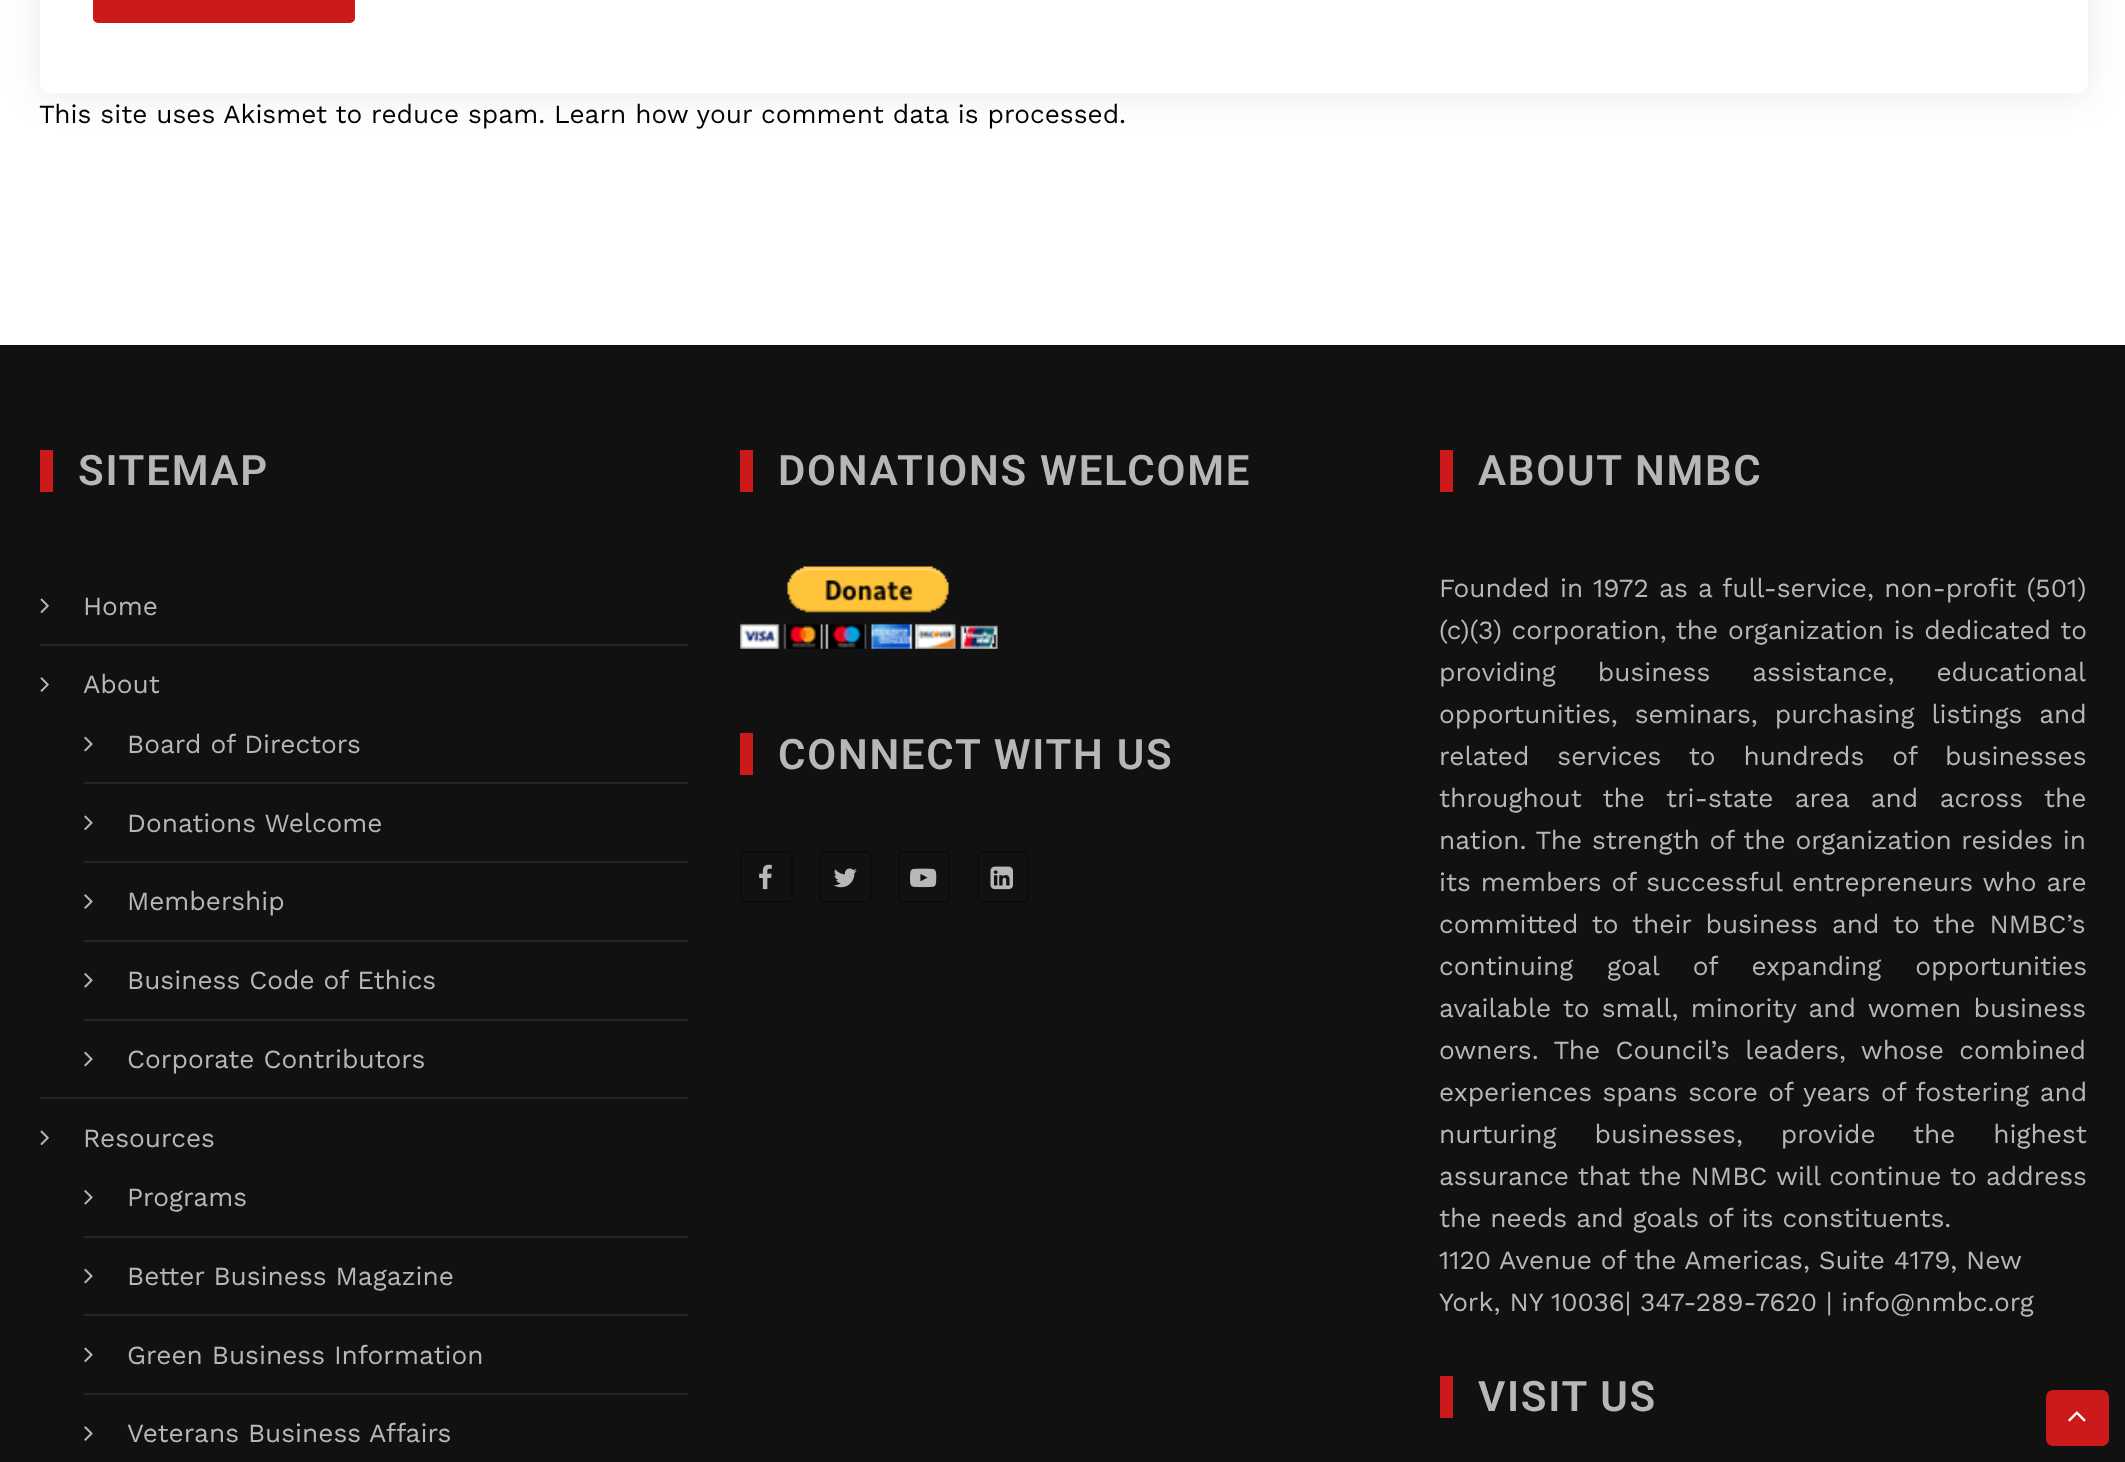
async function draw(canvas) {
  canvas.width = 2125
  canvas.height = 1462
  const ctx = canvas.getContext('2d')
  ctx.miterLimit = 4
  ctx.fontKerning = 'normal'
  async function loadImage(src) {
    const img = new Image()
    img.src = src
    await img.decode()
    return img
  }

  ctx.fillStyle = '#fff'
  ctx.fillRect(0, 0, 2125, 1462)
  ctx.fillStyle = '#3232321a'
  ctx.filter = 'blur(17.5px)'
  ctx.beginPath()
  ctx.roundRect(40, -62, 2048, 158, 9)
  ctx.fill()
  ctx.filter = 'none'
  ctx.fillStyle = '#fff'
  ctx.beginPath()
  ctx.roundRect(40, -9, 2048, 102, 9)
  ctx.fill()
  ctx.fillStyle = '#cc1919'
  ctx.beginPath()
  ctx.roundRect(94, -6, 260, 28, 4)
  ctx.fill()
  ctx.strokeStyle = '#cc1919'
  ctx.lineWidth = 2
  ctx.stroke()
  ctx.font = '26.25px Work Sans'
  ctx.fillStyle = '#010101'
  ctx.fillText('This site uses Akismet to reduce spam. Learn how your comment data is processed.', 39, 123)
  ctx.fillStyle = '#111'
  ctx.fillRect(0, 345, 2125, 1117)
  ctx.fillStyle = '#cc1919'
  ctx.fillRect(40, 450, 13, 42)
  ctx.letterSpacing = '1.75px'
  ctx.font = '600 42px Roboto'
  ctx.fillStyle = '#b7b7b7'
  ctx.fillText('SITEMAP', 78, 485)
  ctx.fillStyle = '#252525'
  ctx.fillRect(40, 644, 648, 2)
  ctx.drawImage(await loadImage('image0.png'), 40, 598, 9, 16)
  ctx.letterSpacing = '0px'
  ctx.font = '26.25px Work Sans'
  ctx.fillStyle = '#b7b7b7'
  ctx.fillText('Home', 83, 615)
  ctx.fillStyle = '#252525'
  ctx.fillRect(40, 1097, 648, 2)
  ctx.drawImage(await loadImage('image1.png'), 40, 677, 9, 15)
  ctx.fillStyle = '#b7b7b7'
  ctx.fillText('About', 83, 693)
  ctx.fillStyle = '#252525'
  ctx.fillRect(84, 782, 604, 2)
  ctx.drawImage(await loadImage('image2.png'), 84, 736, 9, 16)
  ctx.fillStyle = '#b7b7b7'
  ctx.fillText('Board of Directors', 127, 753)
  ctx.fillStyle = '#252525'
  ctx.fillRect(84, 861, 604, 2)
  ctx.drawImage(await loadImage('image3.png'), 84, 815, 9, 16)
  ctx.fillStyle = '#b7b7b7'
  ctx.fillText('Donations Welcome', 127, 832)
  ctx.fillStyle = '#252525'
  ctx.fillRect(84, 940, 604, 2)
  ctx.drawImage(await loadImage('image4.png'), 84, 894, 9, 15)
  ctx.fillStyle = '#b7b7b7'
  ctx.fillText('Membership', 127, 910)
  ctx.fillStyle = '#252525'
  ctx.fillRect(84, 1019, 604, 2)
  ctx.drawImage(await loadImage('image5.png'), 84, 973, 9, 15)
  ctx.fillStyle = '#b7b7b7'
  ctx.fillText('Business Code of Ethics', 127, 989)
  ctx.drawImage(await loadImage('image2.png'), 84, 1051, 9, 16)
  ctx.fillText('Corporate Contributors', 127, 1068)
  ctx.drawImage(await loadImage('image0.png'), 40, 1130, 9, 16)
  ctx.fillText('Resources', 83, 1147)
  ctx.fillStyle = '#252525'
  ctx.fillRect(84, 1236, 604, 2)
  ctx.drawImage(await loadImage('image5.png'), 84, 1190, 9, 15)
  ctx.fillStyle = '#b7b7b7'
  ctx.fillText('Programs', 127, 1206)
  ctx.fillStyle = '#252525'
  ctx.fillRect(84, 1314, 604, 2)
  ctx.drawImage(await loadImage('image2.png'), 84, 1268, 9, 16)
  ctx.fillStyle = '#b7b7b7'
  ctx.fillText('Better Business Magazine', 127, 1285)
  ctx.fillStyle = '#252525'
  ctx.fillRect(84, 1393, 604, 2)
  ctx.drawImage(await loadImage('image3.png'), 84, 1347, 9, 16)
  ctx.fillStyle = '#b7b7b7'
  ctx.fillText('Green Business Information', 127, 1364)
  ctx.drawImage(await loadImage('image4.png'), 84, 1426, 9, 15)
  ctx.fillText('Veterans Business Affairs', 127, 1442)
  ctx.fillStyle = '#cc1919'
  ctx.fillRect(740, 450, 13, 42)
  ctx.letterSpacing = '1.75px'
  ctx.font = '600 42px Roboto'
  ctx.fillStyle = '#b7b7b7'
  ctx.fillText('DONATIONS WELCOME', 778, 485)
  ctx.drawImage(await loadImage('image6.png'), 740, 566, 258, 83)
  ctx.fillStyle = '#cc1919'
  ctx.fillRect(740, 733, 13, 42)
  ctx.fillStyle = '#b7b7b7'
  ctx.fillText('CONNECT WITH US', 778, 769)
  ctx.beginPath()
  ctx.roundRect(741, 852, 51, 50, 4)
  ctx.strokeStyle = '#0c0c0c'
  ctx.stroke()
  ctx.drawImage(await loadImage('image7.png'), 759, 864, 13, 26)
  ctx.beginPath()
  ctx.roundRect(820, 852, 51, 50, 4)
  ctx.stroke()
  ctx.drawImage(await loadImage('image8.png'), 833, 868, 24, 20)
  ctx.beginPath()
  ctx.roundRect(899, 852, 50, 50, 4)
  ctx.stroke()
  ctx.drawImage(await loadImage('image9.png'), 910, 868, 27, 20)
  ctx.beginPath()
  ctx.roundRect(978, 852, 50, 50, 4)
  ctx.stroke()
  ctx.drawImage(await loadImage('image10.png'), 990, 866, 23, 24)
  ctx.fillStyle = '#cc1919'
  ctx.fillRect(1440, 450, 13, 42)
  ctx.fillStyle = '#b7b7b7'
  ctx.fillText('ABOUT NMBC', 1478, 485)
  ctx.letterSpacing = '0px'
  ctx.wordSpacing = '1.25px'
  ctx.font = '26.25px Work Sans'
  ctx.fillText('Founded in 1972 as a full-service, non-profit (501)', 1439, 597)
  ctx.wordSpacing = '0.75px'
  ctx.fillText('(c)(3) corporation, the organization is dedicated to', 1439, 639)
  ctx.wordSpacing = '33px'
  ctx.fillText('providing business assistance, educational', 1439, 681)
  ctx.wordSpacing = '8px'
  ctx.fillText('opportunities, seminars, purchasing listings and', 1439, 723)
  ctx.wordSpacing = '19px'
  ctx.fillText('related services to hundreds of businesses', 1439, 765)
  ctx.wordSpacing = '12.5px'
  ctx.fillText('throughout the tri-state area and across the', 1439, 807)
  ctx.wordSpacing = '0.75px'
  ctx.fillText('nation. The strength of the organization resides in', 1439, 849)
  ctx.wordSpacing = '1px'
  ctx.fillText('its members of successful entrepreneurs who are', 1439, 891)
  ctx.wordSpacing = '5px'
  ctx.fillText('committed to their business and to the NMBC’s', 1439, 933)
  ctx.wordSpacing = '25px'
  ctx.fillText('continuing goal of expanding opportunities', 1439, 975)
  ctx.wordSpacing = '3.25px'
  ctx.fillText('available to small, minority and women business', 1439, 1017)
  ctx.wordSpacing = '6.5px'
  ctx.fillText('owners. The Council’s leaders, whose combined', 1439, 1059)
  ctx.wordSpacing = '1.5px'
  ctx.fillText('experiences spans score of years of fostering and', 1439, 1101)
  ctx.wordSpacing = '29px'
  ctx.fillText('nurturing businesses, provide the highest', 1439, 1143)
  ctx.wordSpacing = '0.25px'
  ctx.fillText('assurance that the NMBC will continue to address', 1439, 1185)
  ctx.wordSpacing = '0px'
  ctx.fillText('the needs and goals of its constituents.', 1439, 1227)
  ctx.fillText('1120 Avenue of the Americas, Suite 4179, New', 1439, 1269)
  ctx.fillText('York, NY 10036| 347-289-7620 | info@nmbc.org', 1439, 1311)
  ctx.fillStyle = '#cc1919'
  ctx.fillRect(1440, 1376, 13, 42)
  ctx.letterSpacing = '1.75px'
  ctx.font = '600 42px Roboto'
  ctx.fillStyle = '#b7b7b7'
  ctx.fillText('VISIT US', 1478, 1411)
  ctx.fillStyle = '#cc1919'
  ctx.beginPath()
  ctx.roundRect(2046, 1390, 63, 56, 7)
  ctx.fill()
  ctx.drawImage(await loadImage('image11.png'), 2068, 1411, 18, 11)
}

draw(document.querySelector('canvas'))
